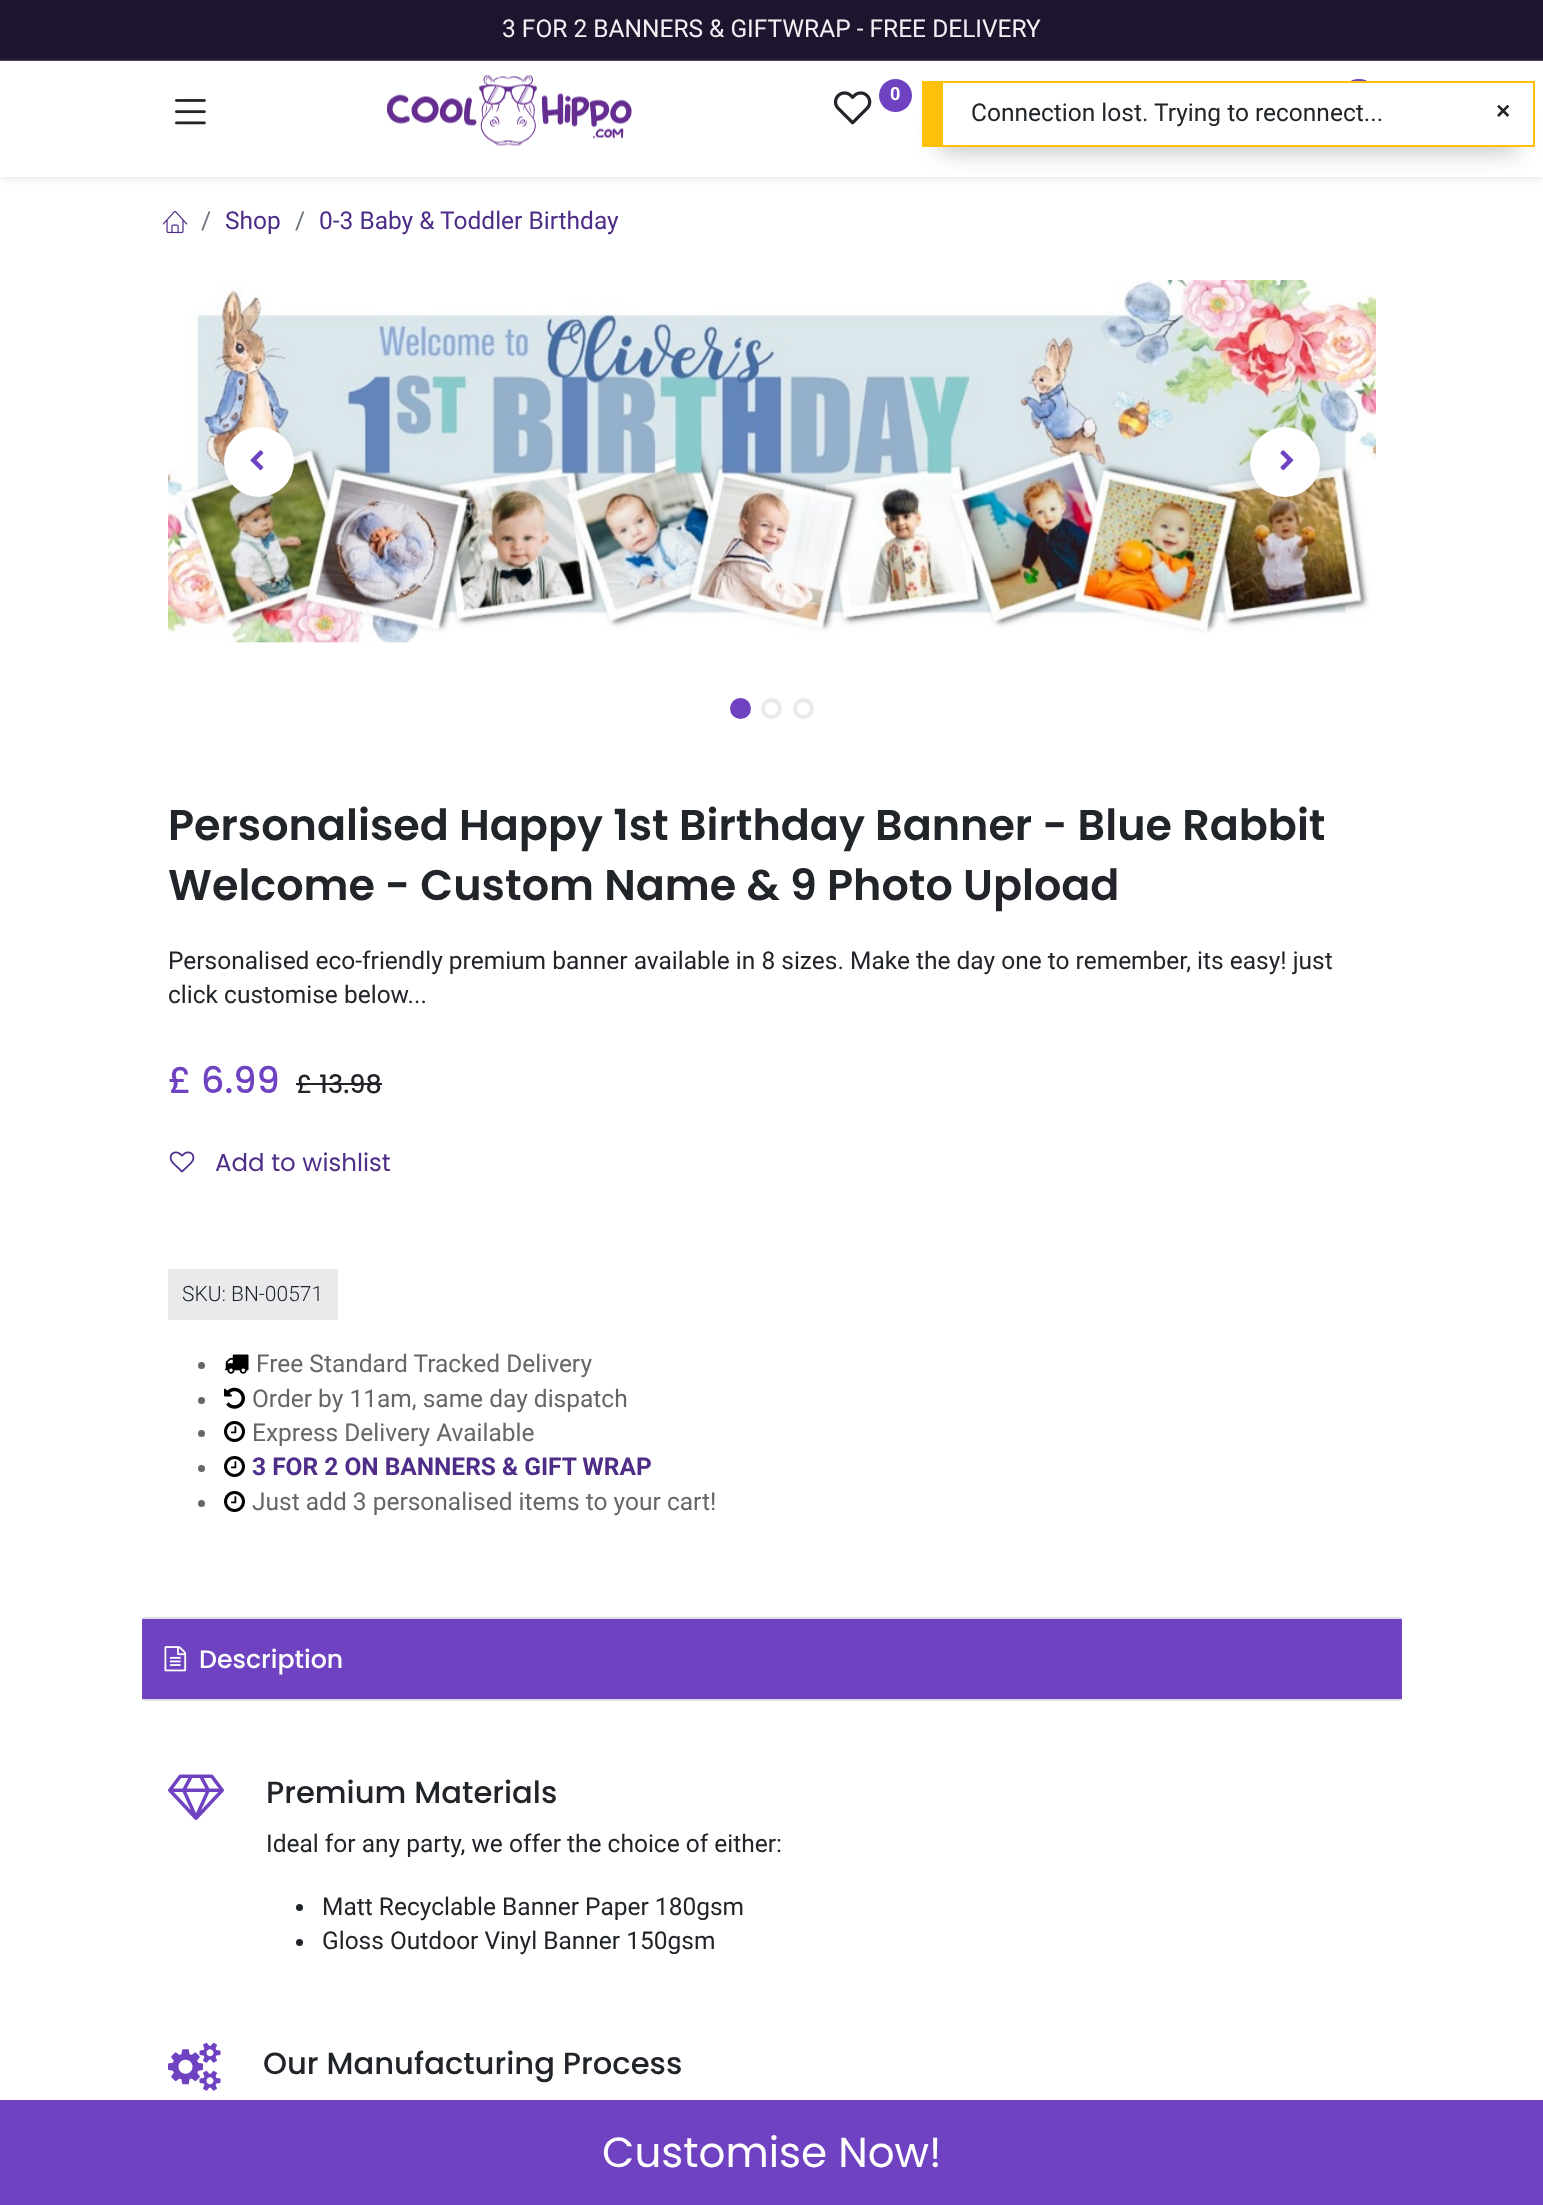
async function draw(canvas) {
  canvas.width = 1543
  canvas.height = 2205
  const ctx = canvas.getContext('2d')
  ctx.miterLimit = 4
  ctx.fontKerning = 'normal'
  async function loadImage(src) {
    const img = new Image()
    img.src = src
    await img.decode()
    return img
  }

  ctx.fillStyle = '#fff'
  ctx.fillRect(0, 0, 1543, 2205)
  ctx.fillStyle = '#1d142e'
  ctx.fillRect(0, 0, 1543, 60)
  ctx.fillStyle = '#383047'
  ctx.fillRect(0, 60, 1543, 1)
  ctx.font = '24.5px Roboto'
  ctx.fillStyle = '#f2f0f5'
  ctx.fillText('3 FOR 2 BANNERS & GIFTWRAP - FREE DELIVERY', 502, 37)
  ctx.fillStyle = '#e9ecef'
  ctx.filter = 'blur(3.5px)'
  ctx.beginPath()
  ctx.rect(0, 65, 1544, 115)
  ctx.fill()
  ctx.filter = 'none'
  ctx.fillStyle = '#fff'
  ctx.fillRect(0, 61, 1543, 116)
  ctx.drawImage(await loadImage('image0.png'), 387, 75, 245, 71)
  ctx.drawImage(await loadImage('image1.png'), 833, 91, 39, 34)
  ctx.fillStyle = '#6f42c1'
  ctx.beginPath()
  ctx.arc(895.5, 95.5, 16.5, 0, 2 * Math.PI)
  ctx.fill()
  ctx.font = 'bold 18px Roboto'
  ctx.fillStyle = '#fff'
  ctx.fillText('0', 890, 100)
  ctx.fillStyle = '#6f42c1'
  ctx.beginPath()
  ctx.roundRect(1342, 79, 34, 33, 16.5)
  ctx.fill()
  ctx.drawImage(await loadImage('image2.png'), 175, 99, 31, 26)
  ctx.drawImage(await loadImage('image3.png'), 162, 211, 26, 23)
  ctx.font = '24.5px Roboto'
  ctx.fillStyle = '#6c757d'
  ctx.fillText('/', 201, 229)
  ctx.fillStyle = '#4e2d89'
  ctx.fillText('Shop', 225, 229)
  ctx.fillStyle = '#6c757d'
  ctx.fillText('/', 295, 229)
  ctx.fillStyle = '#4e2d89'
  ctx.fillText('0-3 Baby & Toddler Birthday', 319, 229)
  ctx.drawImage(await loadImage('image4.png'), 168, 280, 1208, 363)
  ctx.fillStyle = '#00000026'
  ctx.filter = 'blur(14px)'
  ctx.beginPath()
  ctx.roundRect(224, 441, 70, 70, 35)
  ctx.fill()
  ctx.filter = 'none'
  ctx.fillStyle = '#fff'
  ctx.beginPath()
  ctx.arc(259, 462, 35, 0, 2 * Math.PI)
  ctx.fill()
  ctx.drawImage(await loadImage('image5.png'), 250, 450, 14, 21)
  ctx.fillStyle = '#00000026'
  ctx.filter = 'blur(14px)'
  ctx.beginPath()
  ctx.roundRect(1250, 441, 70, 70, 35)
  ctx.fill()
  ctx.filter = 'none'
  ctx.fillStyle = '#fff'
  ctx.beginPath()
  ctx.arc(1285, 462, 35, 0, 2 * Math.PI)
  ctx.fill()
  ctx.drawImage(await loadImage('image6.png'), 1280, 450, 14, 21)
  ctx.fillStyle = '#6f42c1'
  ctx.beginPath()
  ctx.arc(740.5, 708.5, 8.5, 0, 2 * Math.PI)
  ctx.fill()
  ctx.strokeStyle = '#6f42c1'
  ctx.lineWidth = 4
  ctx.stroke()
  ctx.beginPath()
  ctx.arc(771.5, 708.5, 8.5, 0, 2 * Math.PI)
  ctx.strokeStyle = '#e7eaed'
  ctx.stroke()
  ctx.beginPath()
  ctx.arc(803.5, 708.5, 8.5, 0, 2 * Math.PI)
  ctx.stroke()
  ctx.font = '600 42.9px Poppins'
  ctx.fillStyle = '#212529'
  ctx.fillText('Personalised Happy 1st Birthday Banner - Blue Rabbit', 168, 840)
  ctx.fillText('Welcome - Custom Name & 9 Photo Upload', 168, 900)
  ctx.font = '24.5px Roboto'
  ctx.fillText('Personalised eco-friendly premium banner available in 8 sizes. Make the day one to remember, its easy! just', 168, 969)
  ctx.fillText('click customise below...', 168, 1003)
  ctx.font = '500 36.5px Poppins'
  ctx.fillStyle = '#6f42c1'
  ctx.fillText('£ 6.99', 168, 1093)
  ctx.font = '500 25.5px Poppins'
  ctx.fillStyle = '#212529'
  ctx.fillText('£ 13.98', 296, 1093)
  ctx.fillRect(296, 1083, 86, 2)
  ctx.drawImage(await loadImage('image7.png'), 169, 1151, 26, 22)
  ctx.font = '24.5px Poppins'
  ctx.fillStyle = '#4e2d89'
  ctx.fillText('Add to wishlist', 215, 1171)
  ctx.fillStyle = '#e9eaec'
  ctx.fillRect(168, 1269, 170, 51)
  ctx.font = '300 21px Roboto'
  ctx.fillStyle = '#212529'
  ctx.fillText('SKU: BN-00571', 182, 1301)
  ctx.fillStyle = '#646669'
  ctx.beginPath()
  ctx.arc(201.5, 1365.5, 3.5, 0, 2 * Math.PI)
  ctx.fill()
  ctx.drawImage(await loadImage('image8.png'), 224, 1354, 25, 20)
  ctx.font = '24.5px Roboto'
  ctx.fillText('Free Standard Tracked Delivery', 256, 1372)
  ctx.beginPath()
  ctx.arc(201.5, 1400.5, 3.5, 0, 2 * Math.PI)
  ctx.fill()
  ctx.drawImage(await loadImage('image9.png'), 224, 1387, 21, 22)
  ctx.fillText('Order by 11am, same day dispatch', 252, 1407)
  ctx.beginPath()
  ctx.arc(201.5, 1433.5, 3.5, 0, 2 * Math.PI)
  ctx.fill()
  ctx.drawImage(await loadImage('image10.png'), 224, 1421, 21, 21)
  ctx.fillText('Express Delivery Available', 252, 1441)
  ctx.beginPath()
  ctx.arc(201.5, 1468.5, 3.5, 0, 2 * Math.PI)
  ctx.fill()
  ctx.drawImage(await loadImage('image10.png'), 224, 1456, 21, 21)
  ctx.font = 'bold 24.5px Roboto'
  ctx.fillStyle = '#4e2d89'
  ctx.fillText('3 FOR 2 ON BANNERS & GIFT WRAP', 252, 1475)
  ctx.fillStyle = '#646669'
  ctx.beginPath()
  ctx.arc(201.5, 1503.5, 3.5, 0, 2 * Math.PI)
  ctx.fill()
  ctx.drawImage(await loadImage('image10.png'), 224, 1491, 21, 21)
  ctx.font = '24.5px Roboto'
  ctx.fillText('Just add 3 personalised items to your cart!', 252, 1510)
  ctx.fillStyle = '#dee2e6'
  ctx.fillRect(142, 1617, 1260, 2)
  ctx.fillRect(142, 1699, 1260, 2)
  ctx.fillStyle = '#6f42c1'
  ctx.fillRect(142, 1619, 1260, 80)
  ctx.drawImage(await loadImage('image11.png'), 164, 1646, 23, 26)
  ctx.font = '500 25.25px Poppins'
  ctx.fillStyle = '#fff'
  ctx.fillText('Description', 199, 1668)
  ctx.drawImage(await loadImage('image12.png'), 168, 1774, 56, 46)
  ctx.font = '500 30.6px Poppins'
  ctx.fillStyle = '#212529'
  ctx.fillText('Premium Materials', 266, 1803)
  ctx.font = '24.5px Roboto'
  ctx.fillText('Ideal for any party, we offer the choice of either:', 266, 1852)
  ctx.beginPath()
  ctx.arc(299.5, 1907.5, 3.5, 0, 2 * Math.PI)
  ctx.fill()
  ctx.fillText('Matt Recyclable Banner Paper 180gsm', 322, 1915)
  ctx.beginPath()
  ctx.arc(299.5, 1942.5, 3.5, 0, 2 * Math.PI)
  ctx.fill()
  ctx.fillText('Gloss Outdoor Vinyl Banner 150gsm', 322, 1949)
  ctx.drawImage(await loadImage('image13.png'), 168, 2042, 53, 49)
  ctx.font = '500 30.6px Poppins'
  ctx.fillText('Our Manufacturing Process', 263, 2074)
  ctx.fillStyle = '#00000040'
  ctx.filter = 'blur(12px)'
  ctx.beginPath()
  ctx.rect(940, 119, 577, 32)
  ctx.fill()
  ctx.filter = 'none'
  ctx.fillStyle = '#fff'
  ctx.fillRect(943, 83, 590, 62)
  ctx.fillStyle = '#ffc107'
  ctx.fillRect(943, 81, 592, 2)
  ctx.fillRect(1533, 81, 2, 66)
  ctx.fillRect(943, 145, 592, 2)
  ctx.fillRect(922, 81, 21, 66)
  ctx.font = '24.5px Roboto'
  ctx.fillStyle = '#212529'
  ctx.fillText('Connection lost. Trying to reconnect...', 971, 121)
  ctx.font = 'bold 24.5px Liberation Sans'
  ctx.fillText('×', 1496, 119)
  ctx.fillStyle = '#6f42c1'
  ctx.fillRect(0, 2100, 1543, 105)
  ctx.font = '42px Poppins'
  ctx.fillStyle = '#fff'
  ctx.fillText('Customise Now!', 602, 2167)
}

draw(document.querySelector('canvas'))
